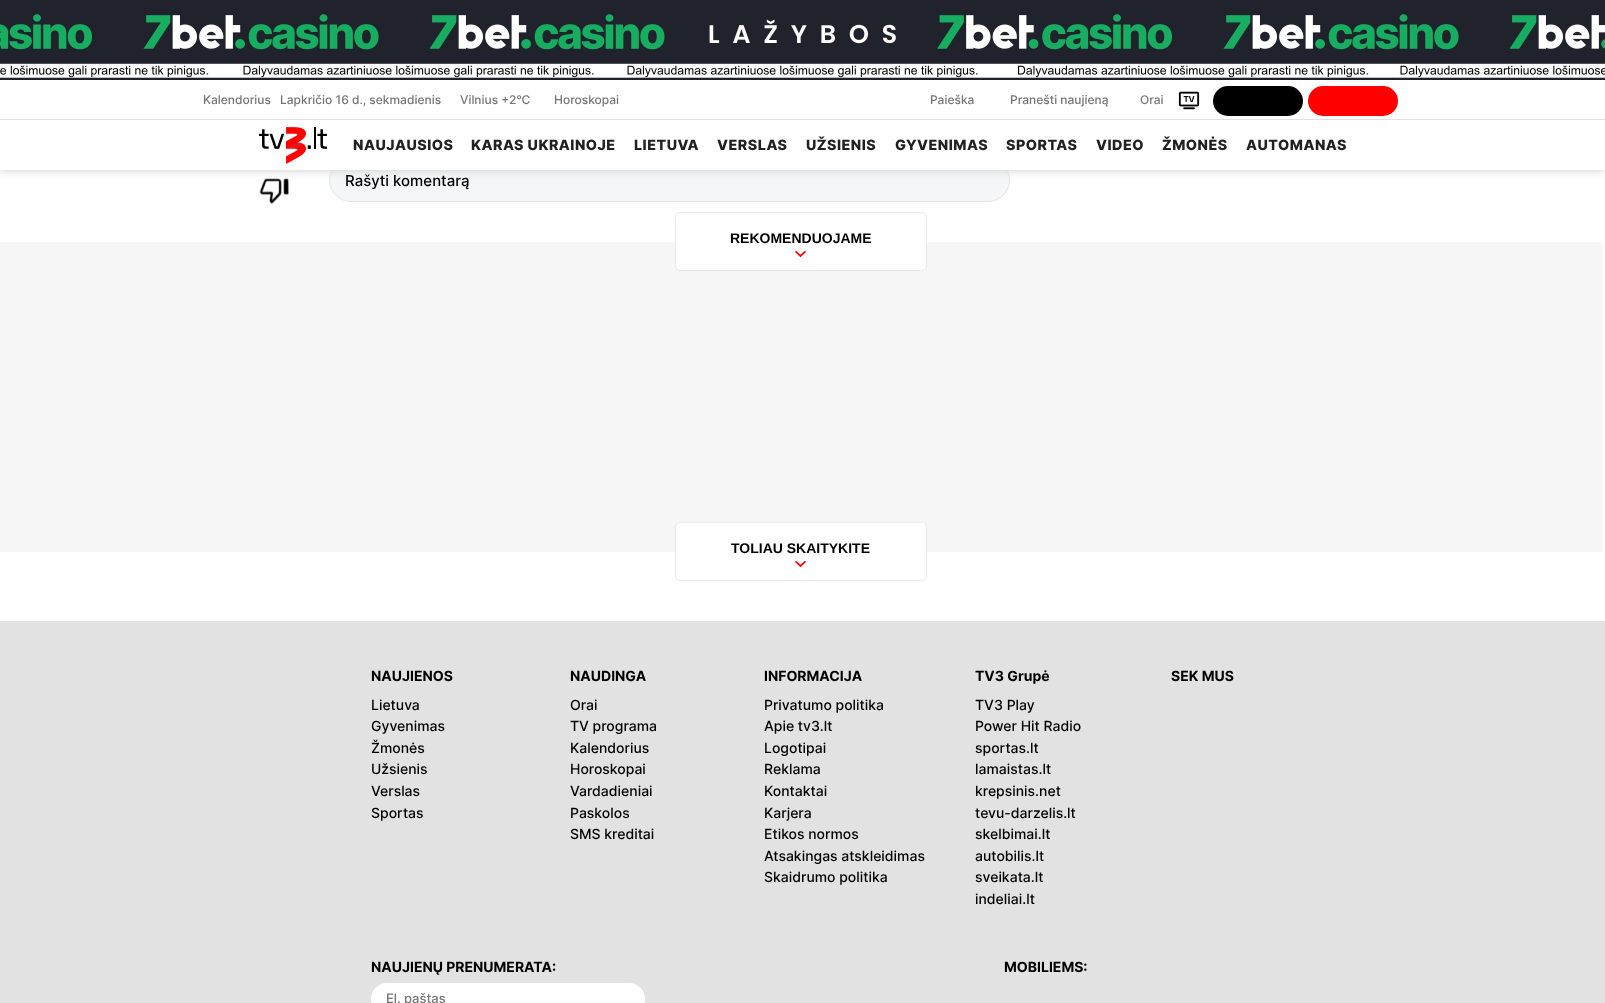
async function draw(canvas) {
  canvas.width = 1605
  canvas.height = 1003
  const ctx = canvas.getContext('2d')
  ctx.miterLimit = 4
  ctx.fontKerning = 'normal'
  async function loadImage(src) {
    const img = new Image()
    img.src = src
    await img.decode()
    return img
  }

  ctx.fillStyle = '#fff'
  ctx.fillRect(0, 0, 1605, 1003)
  ctx.drawImage(await loadImage('image3.png'), 259, 178, 30, 27)
  ctx.fillStyle = '#f5f6f7'
  ctx.beginPath()
  ctx.roundRect(329.5, 158.5, 680, 43, 21.5)
  ctx.fill()
  ctx.strokeStyle = '#e7e6e6'
  ctx.stroke()
  ctx.fillStyle = '#d3d3d3'
  ctx.filter = 'blur(4.5px)'
  ctx.beginPath()
  ctx.rect(0, 1, 1605, 170)
  ctx.fill()
  ctx.filter = 'none'
  ctx.fillStyle = '#fff'
  ctx.fillRect(0, 80, 1605, 90)
  ctx.drawImage(await loadImage('image0.png'), 0, 0, 1605, 80)
  ctx.fillStyle = '#e0e0e0'
  ctx.fillRect(0, 119, 1605, 1)
  ctx.font = '500 12px Inter'
  ctx.fillStyle = '#757575'
  ctx.fillText('Kalendorius', 203, 104)
  ctx.fillText('Lapkričio 16 d., sekmadienis', 280, 104)
  ctx.fillText('Vilnius +2°C', 460, 104)
  ctx.fillText('Horoskopai', 554, 104)
  ctx.fillText('Paieška', 930, 104)
  ctx.fillText('Pranešti naujieną', 1010, 104)
  ctx.fillText('Orai', 1140, 104)
  ctx.drawImage(await loadImage('image1.png'), 1178, 91, 22, 19)
  ctx.fillStyle = '#000'
  ctx.beginPath()
  ctx.roundRect(1213, 86, 90, 30, 15)
  ctx.fill()
  ctx.fillStyle = '#f00'
  ctx.beginPath()
  ctx.roundRect(1308, 86, 90, 30, 15)
  ctx.fill()
  ctx.drawImage(await loadImage('image2.png'), 259, 127, 68, 37)
  ctx.letterSpacing = '0.5px'
  ctx.font = '800 14.25px Inter'
  ctx.fillStyle = '#212121'
  ctx.fillText('NAUJAUSIOS', 353, 150)
  ctx.fillText('KARAS UKRAINOJE', 471, 150)
  ctx.fillText('LIETUVA', 634, 150)
  ctx.fillText('VERSLAS', 717, 150)
  ctx.fillText('UŽSIENIS', 806, 150)
  ctx.fillText('GYVENIMAS', 895, 150)
  ctx.fillText('SPORTAS', 1006, 150)
  ctx.fillText('VIDEO', 1096, 150)
  ctx.fillText('ŽMONĖS', 1162, 150)
  ctx.fillText('AUTOMANAS', 1246, 150)
  ctx.letterSpacing = '0px'
  ctx.font = '500 15px Inter'
  ctx.fillStyle = '#000'
  ctx.fillText('Rašyti komentarą', 345, 186)
  ctx.fillStyle = '#f6f6f6'
  ctx.fillRect(0, 242, 1603, 310)
  ctx.fillStyle = '#fff'
  ctx.beginPath()
  ctx.roundRect(675.5, 212.5, 251, 58, 4.5)
  ctx.fill()
  ctx.strokeStyle = '#e9e9e9'
  ctx.stroke()
  ctx.font = 'bold 14px Liberation Sans'
  ctx.fillStyle = '#000'
  ctx.fillText('REKOMENDUOJAME', 730, 243)
  ctx.drawImage(await loadImage('image4.png'), 795, 251, 11, 6)
  ctx.fillStyle = '#fff'
  ctx.beginPath()
  ctx.roundRect(675.5, 522.5, 251, 58, 4.5)
  ctx.fill()
  ctx.stroke()
  ctx.fillStyle = '#000'
  ctx.fillText('TOLIAU SKAITYKITE', 731, 553)
  ctx.drawImage(await loadImage('image4.png'), 795, 561, 11, 6)
  ctx.fillStyle = '#e2e2e2'
  ctx.fillRect(0, 621, 1605, 382)
  ctx.font = 'bold 14px Inter'
  ctx.fillStyle = '#000'
  ctx.fillText('NAUJIENOS', 371, 681)
  ctx.font = '500 14px Inter'
  ctx.fillText('Lietuva', 371, 710)
  ctx.fillText('Gyvenimas', 371, 731)
  ctx.fillText('Žmonės', 371, 753)
  ctx.fillText('Užsienis', 371, 774)
  ctx.fillText('Verslas', 371, 796)
  ctx.fillText('Sportas', 371, 818)
  ctx.font = 'bold 14px Inter'
  ctx.fillText('NAUDINGA', 570, 681)
  ctx.font = '500 14px Inter'
  ctx.fillText('Orai', 570, 710)
  ctx.fillText('TV programa', 570, 731)
  ctx.fillText('Kalendorius', 570, 753)
  ctx.fillText('Horoskopai', 570, 774)
  ctx.fillText('Vardadieniai', 570, 796)
  ctx.fillText('Paskolos', 570, 818)
  ctx.fillText('SMS kreditai', 570, 839)
  ctx.font = 'bold 14px Inter'
  ctx.fillText('INFORMACIJA', 764, 681)
  ctx.font = '500 14px Inter'
  ctx.fillText('Privatumo politika', 764, 710)
  ctx.fillText('Apie tv3.lt', 764, 731)
  ctx.fillText('Logotipai', 764, 753)
  ctx.fillText('Reklama', 764, 774)
  ctx.fillText('Kontaktai', 764, 796)
  ctx.fillText('Karjera', 764, 818)
  ctx.fillText('Etikos normos', 764, 839)
  ctx.fillText('Atsakingas atskleidimas', 764, 861)
  ctx.fillText('Skaidrumo politika', 764, 882)
  ctx.font = 'bold 14px Inter'
  ctx.fillText('TV3 Grupė', 975, 681)
  ctx.font = '500 14px Inter'
  ctx.fillText('TV3 Play', 975, 710)
  ctx.fillText('Power Hit Radio', 975, 731)
  ctx.fillText('sportas.lt', 975, 753)
  ctx.fillText('lamaistas.lt', 975, 774)
  ctx.fillText('krepsinis.net', 975, 796)
  ctx.fillText('tevu-darzelis.lt', 975, 818)
  ctx.fillText('skelbimai.lt', 975, 839)
  ctx.fillText('autobilis.lt', 975, 861)
  ctx.fillText('sveikata.lt', 975, 882)
  ctx.fillText('indeliai.lt', 975, 904)
  ctx.font = 'bold 14px Inter'
  ctx.fillText('SEK MUS', 1171, 681)
  ctx.fillText('NAUJIENŲ PRENUMERATA:', 371, 972)
  ctx.fillStyle = '#fff'
  ctx.beginPath()
  ctx.roundRect(371, 983, 274, 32, 16)
  ctx.fill()
  ctx.font = '500 13px Inter'
  ctx.fillStyle = '#757575'
  ctx.fillText('El. paštas', 386, 1003)
  ctx.font = 'bold 14px Inter'
  ctx.fillStyle = '#000'
  ctx.fillText('MOBILIEMS:', 1004, 972)
}

draw(document.querySelector('canvas'))
